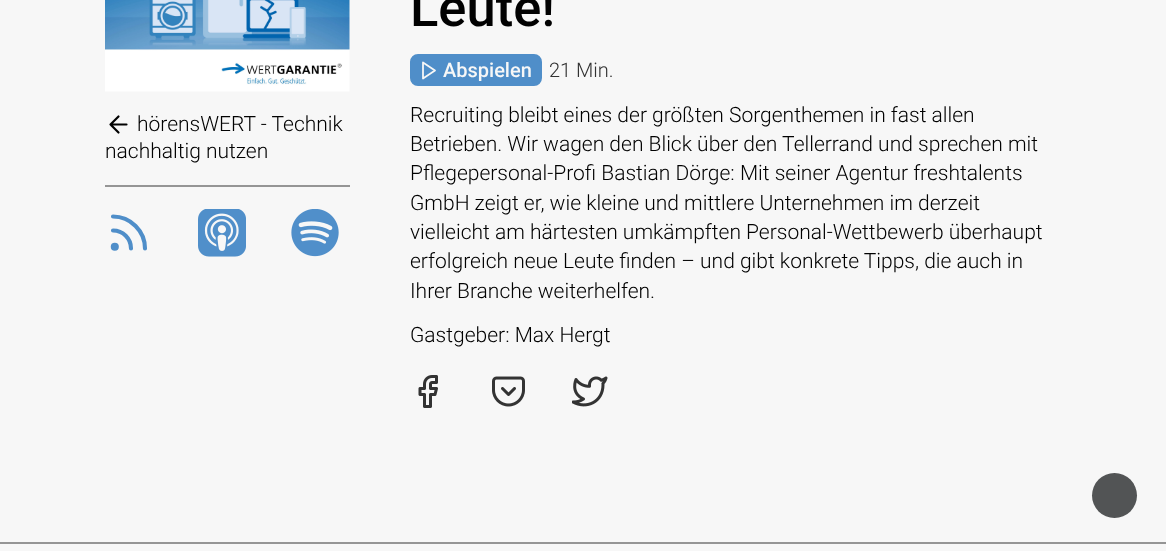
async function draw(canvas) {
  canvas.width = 1166
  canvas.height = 551
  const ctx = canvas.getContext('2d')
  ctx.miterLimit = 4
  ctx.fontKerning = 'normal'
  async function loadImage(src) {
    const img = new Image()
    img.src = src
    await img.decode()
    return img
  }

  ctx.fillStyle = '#f7f7f7'
  ctx.fillRect(0, 0, 1166, 551)
  ctx.drawImage(await loadImage('image0.png'), 105, 0, 245, 92)
  ctx.beginPath()
  ctx.moveTo(126.5, 124.5)
  ctx.lineTo(110.5, 124.5)
  ctx.moveTo(118.5, 132.5)
  ctx.lineTo(110.5, 124.5)
  ctx.lineTo(118.5, 116.5)
  ctx.strokeStyle = '#010101'
  ctx.lineWidth = 2.2
  ctx.lineCap = 'round'
  ctx.lineJoin = 'round'
  ctx.stroke()
  ctx.font = '300 21px Roboto'
  ctx.fillStyle = '#010101'
  ctx.fillText('hörensWERT - Technik', 137, 131)
  ctx.fillText('nachhaltig nutzen', 105, 158)
  ctx.fillStyle = '#959595'
  ctx.fillRect(105, 185, 245, 2)
  ctx.beginPath()
  ctx.moveTo(113, 230.5)
  ctx.bezierCurveTo(123, 230.5, 131, 238.5, 131, 248.5)
  ctx.moveTo(113, 216.5)
  ctx.bezierCurveTo(130.5, 216.5, 145, 231, 145, 248.5)
  ctx.strokeStyle = '#4f8ec9'
  ctx.lineWidth = 4.1
  ctx.stroke()
  ctx.beginPath()
  ctx.arc(114.8, 246.7, 2, 0, 2 * Math.PI)
  ctx.stroke()
  ctx.drawImage(await loadImage('image1.png'), 198, 209, 48, 48)
  ctx.drawImage(await loadImage('image2.png'), 291, 209, 48, 48)
  ctx.font = '500 52.5px Roboto'
  ctx.fillStyle = '#010101'
  ctx.fillText('Leute!', 410, 26)
  ctx.fillStyle = '#4f8ec9'
  ctx.beginPath()
  ctx.roundRect(411, 55, 130, 30, 7)
  ctx.fill()
  ctx.lineWidth = 2
  ctx.lineJoin = 'miter'
  ctx.stroke()
  ctx.beginPath()
  ctx.moveTo(423, 62.5)
  ctx.lineTo(435, 70.5)
  ctx.lineTo(423, 78.5)
  ctx.closePath()
  ctx.strokeStyle = '#f7f7f7'
  ctx.lineWidth = 1.8
  ctx.lineJoin = 'round'
  ctx.stroke()
  ctx.font = '500 20px Roboto'
  ctx.fillStyle = '#f7f7f7'
  ctx.fillText('Abspielen', 443, 77)
  ctx.font = '300 20px Roboto'
  ctx.fillStyle = '#323232'
  ctx.fillText('21 Min.', 549, 77)
  ctx.font = '300 21px Roboto'
  ctx.fillStyle = '#010101'
  ctx.fillText('Recruiting bleibt eines der größten Sorgenthemen in fast allen', 410, 122)
  ctx.fillText('Betrieben. Wir wagen den Blick über den Tellerrand und sprechen mit', 410, 151)
  ctx.fillText('Pflegepersonal-Profi Bastian Dörge: Mit seiner Agentur freshtalents', 410, 180)
  ctx.fillText('GmbH zeigt er, wie kleine und mittlere Unternehmen im derzeit', 410, 210)
  ctx.fillText('vielleicht am härtesten umkämpften Personal-Wettbewerb überhaupt', 410, 239)
  ctx.fillText('erfolgreich neue Leute finden – und gibt konkrete Tipps, die auch in', 410, 268)
  ctx.fillText('Ihrer Branche weiterhelfen.', 410, 298)
  ctx.fillText('Gastgeber: Max Hergt', 410, 342)
  ctx.drawImage(await loadImage('image3.png'), 418, 375, 20, 33)
  ctx.drawImage(await loadImage('image4.png'), 492, 376, 33, 31)
  ctx.drawImage(await loadImage('image5.png'), 572, 376, 36, 31)
  ctx.fillStyle = '#525455'
  ctx.beginPath()
  ctx.arc(1114.5, 495.5, 22.5, 0, 2 * Math.PI)
  ctx.fill()
  ctx.fillStyle = '#959595'
  ctx.fillRect(0, 542, 1166, 2)
}

draw(document.querySelector('canvas'))
